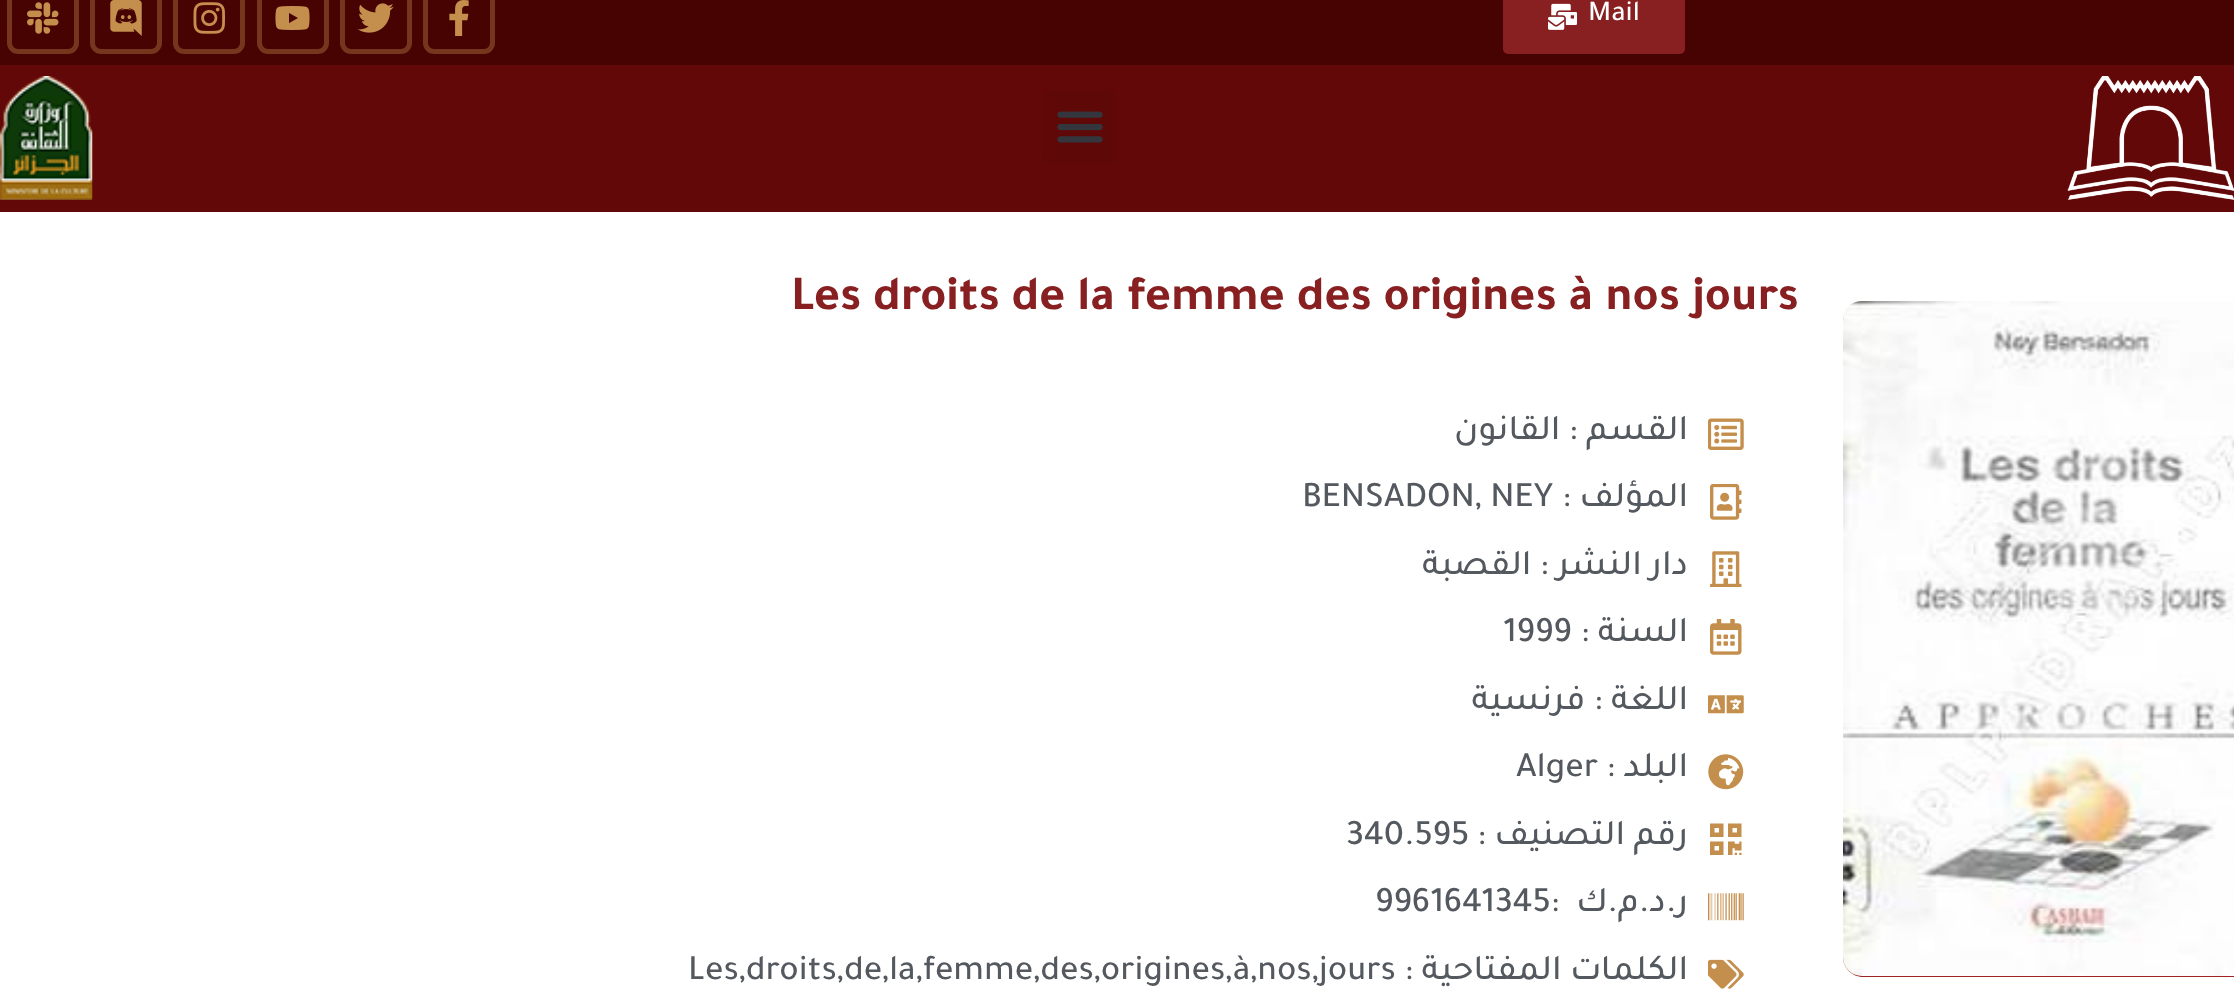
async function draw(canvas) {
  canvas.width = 2234
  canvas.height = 994
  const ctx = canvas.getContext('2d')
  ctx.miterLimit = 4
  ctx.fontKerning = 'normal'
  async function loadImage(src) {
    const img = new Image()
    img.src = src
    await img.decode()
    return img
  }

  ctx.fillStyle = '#fff'
  ctx.fillRect(0, 0, 2234, 994)
  ctx.fillStyle = '#470202'
  ctx.fillRect(0, 0, 2234, 65)
  ctx.beginPath()
  ctx.roundRect(9.5, -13.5, 67, 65, 8.5)
  ctx.strokeStyle = '#75361d'
  ctx.lineWidth = 5
  ctx.stroke()
  ctx.drawImage(await loadImage('image0.png'), 27, 2, 32, 32)
  ctx.beginPath()
  ctx.roundRect(92.5, -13.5, 67, 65, 8.5)
  ctx.stroke()
  ctx.drawImage(await loadImage('image1.png'), 110, 0, 32, 36)
  ctx.beginPath()
  ctx.roundRect(175.5, -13.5, 67, 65, 8.5)
  ctx.stroke()
  ctx.drawImage(await loadImage('image2.png'), 193, 2, 32, 32)
  ctx.beginPath()
  ctx.roundRect(259.5, -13.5, 67, 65, 8.5)
  ctx.stroke()
  ctx.drawImage(await loadImage('image3.png'), 275, 6, 35, 24)
  ctx.beginPath()
  ctx.roundRect(342.5, -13.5, 67, 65, 8.5)
  ctx.stroke()
  ctx.drawImage(await loadImage('image4.png'), 358, 3, 36, 30)
  ctx.beginPath()
  ctx.roundRect(425.5, -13.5, 67, 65, 8.5)
  ctx.stroke()
  ctx.drawImage(await loadImage('image5.png'), 449, 0, 20, 36)
  ctx.fillStyle = '#882021'
  ctx.beginPath()
  ctx.roundRect(1503, -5, 182, 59, 5)
  ctx.fill()
  ctx.drawImage(await loadImage('image6.png'), 1548, 3, 29, 27)
  ctx.font = '500 29px Tajawal'
  ctx.fillStyle = '#fff'
  ctx.fillText('Mail', 1588, 20)
  ctx.fillStyle = '#630808'
  ctx.fillRect(0, 65, 2234, 147)
  ctx.drawImage(await loadImage('image7.png'), 0, 76, 93, 124)
  ctx.fillStyle = '#5e0808'
  ctx.beginPath()
  ctx.roundRect(1042, 90, 74, 74, 7)
  ctx.fill()
  ctx.drawImage(await loadImage('image8.png'), 1057, 111, 46, 32)
  ctx.drawImage(await loadImage('image9.png'), 2067, 76, 167, 124)
  ctx.font = 'bold 49.5px Tajawal'
  ctx.fillStyle = '#882021'
  ctx.fillText('Les droits de la femme des origines à nos jours', 791, 309)
  ctx.direction = 'rtl'
  ctx.font = '500 36px Tajawal'
  ctx.fillStyle = '#54595f'
  ctx.fillText('القسم : القانون', 1688, 439)
  ctx.drawImage(await loadImage('image10.png'), 1708, 418, 36, 32)
  ctx.direction = 'ltr'
  ctx.fillText('BENSADON, NEY', 1302, 506)
  ctx.direction = 'rtl'
  ctx.fillText('المؤلف :', 1688, 506)
  ctx.drawImage(await loadImage('image11.png'), 1710, 484, 32, 36)
  ctx.fillText('دار النشر : القصبة', 1688, 574)
  ctx.drawImage(await loadImage('image12.png'), 1710, 551, 32, 36)
  ctx.direction = 'ltr'
  ctx.fillText('1999', 1503, 641)
  ctx.direction = 'rtl'
  ctx.fillText('السنة :', 1688, 641)
  ctx.drawImage(await loadImage('image13.png'), 1710, 619, 32, 36)
  ctx.fillText('اللغة : فرنسية', 1688, 709)
  ctx.drawImage(await loadImage('image14.png'), 1708, 695, 36, 19)
  ctx.direction = 'ltr'
  ctx.fillText('Alger', 1516, 776)
  ctx.direction = 'rtl'
  ctx.fillText('البلد :', 1688, 776)
  ctx.drawImage(await loadImage('image15.png'), 1708, 754, 36, 36)
  ctx.direction = 'ltr'
  ctx.fillText('340.595', 1346, 844)
  ctx.direction = 'rtl'
  ctx.fillText('رقم التصنيف :', 1688, 844)
  ctx.drawImage(await loadImage('image16.png'), 1710, 823, 32, 32)
  ctx.direction = 'ltr'
  ctx.fillText('9961641345:', 1375, 911)
  ctx.direction = 'rtl'
  ctx.fillText('ر.د.م.ك', 1688, 911)
  ctx.drawImage(await loadImage('image17.png'), 1708, 893, 36, 28)
  ctx.direction = 'ltr'
  ctx.fillText('Les,droits,de,la,femme,des,origines,à,nos,jours', 688, 979)
  ctx.direction = 'rtl'
  ctx.fillText('الكلمات المفتاحية :', 1688, 979)
  ctx.drawImage(await loadImage('image18.png'), 1708, 959, 36, 30)
  ctx.fillStyle = '#a02323'
  ctx.beginPath()
  ctx.moveTo(1863, 302)
  ctx.lineTo(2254, 302)
  ctx.lineTo(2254, 977)
  ctx.lineTo(1863, 977)
  ctx.bezierCurveTo(1852, 977, 1843, 968, 1843, 957)
  ctx.lineTo(1843, 322)
  ctx.bezierCurveTo(1843, 311, 1852, 302, 1863, 302)
  ctx.closePath()
  ctx.fill()
  ctx.drawImage(await loadImage('image19.png'), 1843, 301, 391, 675)
}

draw(document.querySelector('canvas'))
